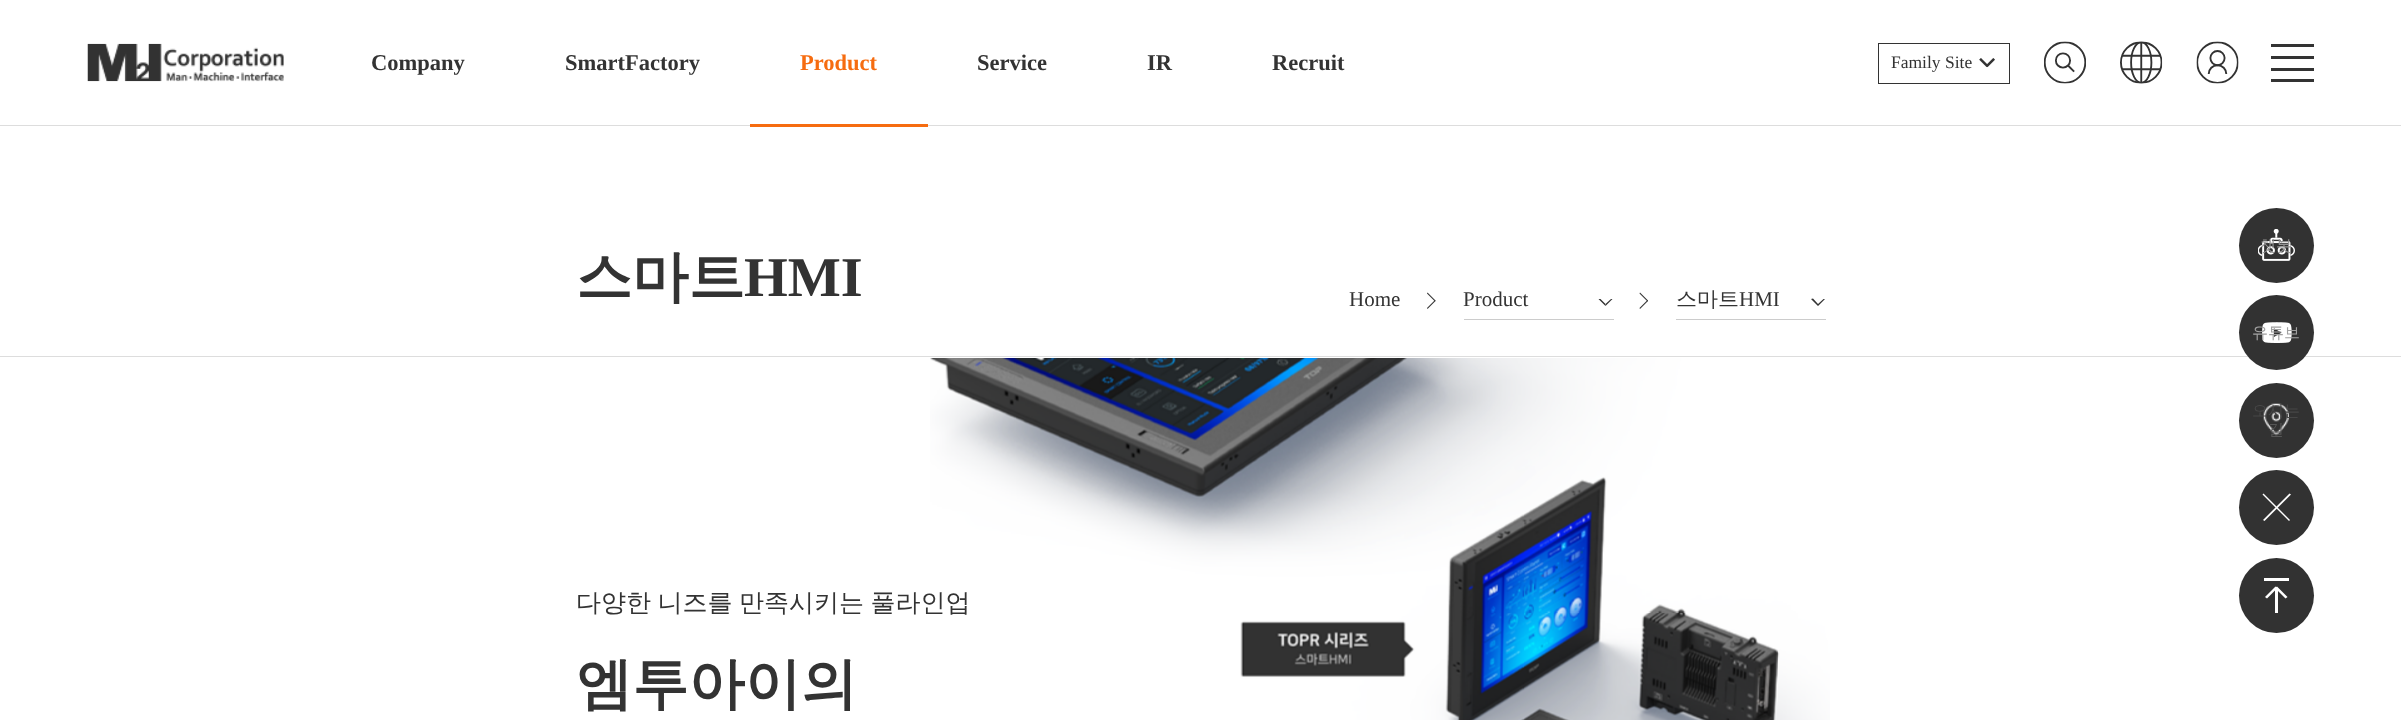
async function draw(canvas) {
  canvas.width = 2401
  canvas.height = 720
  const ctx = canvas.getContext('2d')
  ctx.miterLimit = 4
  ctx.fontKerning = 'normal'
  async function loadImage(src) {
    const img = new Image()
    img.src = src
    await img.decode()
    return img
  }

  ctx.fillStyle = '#fff'
  ctx.fillRect(0, 0, 2401, 720)
  ctx.drawImage(await loadImage('image0.png'), 87, 43, 197, 39)
  ctx.fillStyle = '#ddd'
  ctx.fillRect(0, 125, 2401, 1)
  ctx.font = 'bold 22.5px Liberation Serif'
  ctx.fillStyle = '#333'
  ctx.fillText('Company', 371, 70)
  ctx.fillText('SmartFactory', 565, 70)
  ctx.fillStyle = '#f66c10'
  ctx.fillText('Product', 800, 70)
  ctx.fillRect(750, 124, 178, 3)
  ctx.fillStyle = '#333'
  ctx.fillText('Service', 977, 70)
  ctx.fillText('IR', 1147, 70)
  ctx.fillText('Recruit', 1272, 70)
  ctx.strokeStyle = '#333'
  ctx.strokeRect(1878.5, 43.5, 131, 40)
  ctx.font = '17.5px Liberation Serif'
  ctx.fillText('Family Site', 1891, 68)
  ctx.drawImage(await loadImage('image1.png'), 1979, 58, 16, 10)
  ctx.drawImage(await loadImage('image2.png'), 2044, 41, 42, 43)
  ctx.drawImage(await loadImage('image3.png'), 2120, 41, 43, 43)
  ctx.drawImage(await loadImage('image4.png'), 2196, 41, 43, 43)
  ctx.fillRect(2271, 44, 43, 3)
  ctx.fillRect(2271, 56, 43, 3)
  ctx.fillRect(2271, 68, 43, 3)
  ctx.fillRect(2271, 79, 43, 3)
  ctx.font = 'bold 56.25px WenQuanYi Zen Hei'
  ctx.fillText('스마트', 576, 296)
  ctx.font = 'bold 56.25px Liberation Serif'
  ctx.fillText('HMI', 744, 296)
  ctx.font = '21px Liberation Serif'
  ctx.fillText('Home', 1349, 306)
  ctx.beginPath()
  ctx.moveTo(1427.5, 292.5)
  ctx.lineTo(1435.5, 300.5)
  ctx.lineTo(1435, 301.5)
  ctx.lineTo(1427, 293.5)
  ctx.closePath()
  ctx.fill()
  ctx.beginPath()
  ctx.moveTo(1427, 308)
  ctx.lineTo(1435, 300)
  ctx.lineTo(1435.5, 301)
  ctx.lineTo(1427.5, 309)
  ctx.closePath()
  ctx.fill()
  ctx.fillStyle = '#ccc'
  ctx.fillRect(1464, 319, 150, 1)
  ctx.fillStyle = '#333'
  ctx.fillText('Product', 1463, 306)
  ctx.beginPath()
  ctx.moveTo(1612.5, 299)
  ctx.lineTo(1605.5, 306)
  ctx.lineTo(1605.5, 304)
  ctx.lineTo(1611, 299)
  ctx.closePath()
  ctx.fill()
  ctx.beginPath()
  ctx.moveTo(1605.5, 306)
  ctx.lineTo(1598.5, 299)
  ctx.lineTo(1600.5, 299)
  ctx.lineTo(1605.5, 304)
  ctx.closePath()
  ctx.moveTo(1640, 292.5)
  ctx.lineTo(1648, 300.5)
  ctx.lineTo(1647.5, 301.5)
  ctx.lineTo(1639.5, 293.5)
  ctx.closePath()
  ctx.fill()
  ctx.beginPath()
  ctx.moveTo(1639.5, 308)
  ctx.lineTo(1647.5, 300)
  ctx.lineTo(1648, 301)
  ctx.lineTo(1640, 309)
  ctx.closePath()
  ctx.fill()
  ctx.fillStyle = '#ccc'
  ctx.fillRect(1676, 319, 150, 1)
  ctx.font = '500 21px WenQuanYi Zen Hei'
  ctx.fillStyle = '#333'
  ctx.fillText('스마트', 1676, 306)
  ctx.font = '21px Liberation Serif'
  ctx.fillText('HMI', 1739, 306)
  ctx.beginPath()
  ctx.moveTo(1825, 299)
  ctx.lineTo(1818, 306)
  ctx.lineTo(1818, 304)
  ctx.lineTo(1823.5, 299)
  ctx.closePath()
  ctx.moveTo(1818, 306)
  ctx.lineTo(1811, 299)
  ctx.lineTo(1813, 298.5)
  ctx.lineTo(1818, 304)
  ctx.closePath()
  ctx.fill()
  ctx.fillStyle = '#323232'
  ctx.beginPath()
  ctx.arc(2276.5, 245.5, 37.5, 0, 2 * Math.PI)
  ctx.fill()
  ctx.drawImage(await loadImage('image5.png'), 2258, 229, 37, 32)
  ctx.font = '500 16px WenQuanYi Zen Hei'
  ctx.fillStyle = '#929292'
  ctx.fillText('챗봇', 2260, 251)
  ctx.fillStyle = '#ddd'
  ctx.fillRect(0, 356, 2401, 1)
  ctx.fillStyle = '#323232'
  ctx.beginPath()
  ctx.arc(2276.5, 332.5, 37.5, 0, 2 * Math.PI)
  ctx.fill()
  ctx.drawImage(await loadImage('image6.png'), 2262, 322, 30, 21)
  ctx.fillStyle = '#a1a1a1'
  ctx.fillText('유튜브', 2252, 338)
  ctx.fillStyle = '#323232'
  ctx.beginPath()
  ctx.arc(2276.5, 420.5, 37.5, 0, 2 * Math.PI)
  ctx.fill()
  ctx.drawImage(await loadImage('image7.png'), 2263, 403, 26, 33)
  ctx.fillStyle = '#464646'
  ctx.fillText('오시는', 2252, 416)
  ctx.fillStyle = '#565656'
  ctx.fillText('길', 2268, 435)
  ctx.fillStyle = '#323232'
  ctx.beginPath()
  ctx.arc(2276.5, 507.5, 37.5, 0, 2 * Math.PI)
  ctx.fill()
  ctx.fillStyle = '#fff'
  ctx.beginPath()
  ctx.moveTo(2291, 494.5)
  ctx.lineTo(2264.5, 521)
  ctx.lineTo(2263, 520)
  ctx.lineTo(2289.5, 493.5)
  ctx.closePath()
  ctx.fill()
  ctx.beginPath()
  ctx.moveTo(2289, 521)
  ctx.lineTo(2262.5, 494.5)
  ctx.lineTo(2263.5, 493.5)
  ctx.lineTo(2290, 520)
  ctx.closePath()
  ctx.fill()
  ctx.fillStyle = '#323232'
  ctx.beginPath()
  ctx.arc(2276.5, 595.5, 37.5, 0, 2 * Math.PI)
  ctx.fill()
  ctx.fillStyle = '#fff'
  ctx.fillRect(2264, 578, 25, 3)
  ctx.fillRect(2275, 588, 3, 25)
  ctx.beginPath()
  ctx.moveTo(2265, 597)
  ctx.lineTo(2275.5, 586.5)
  ctx.lineTo(2277.5, 588)
  ctx.lineTo(2267, 598.5)
  ctx.closePath()
  ctx.fill()
  ctx.beginPath()
  ctx.moveTo(2277, 586.5)
  ctx.lineTo(2287.5, 597)
  ctx.lineTo(2285.5, 598.5)
  ctx.lineTo(2275, 588)
  ctx.closePath()
  ctx.fill()
  ctx.drawImage(await loadImage('image8.png'), 930, 358, 900, 362)
  ctx.wordSpacing = '-1px'
  ctx.font = '500 25px WenQuanYi Zen Hei'
  ctx.fillStyle = '#333'
  ctx.fillText('다양한 니즈를 만족시키는 풀라인업', 576, 611)
  ctx.wordSpacing = '0px'
  ctx.font = 'bold 56.25px WenQuanYi Zen Hei'
  ctx.fillText('엠투아이의', 576, 703)
}

draw(document.querySelector('canvas'))
